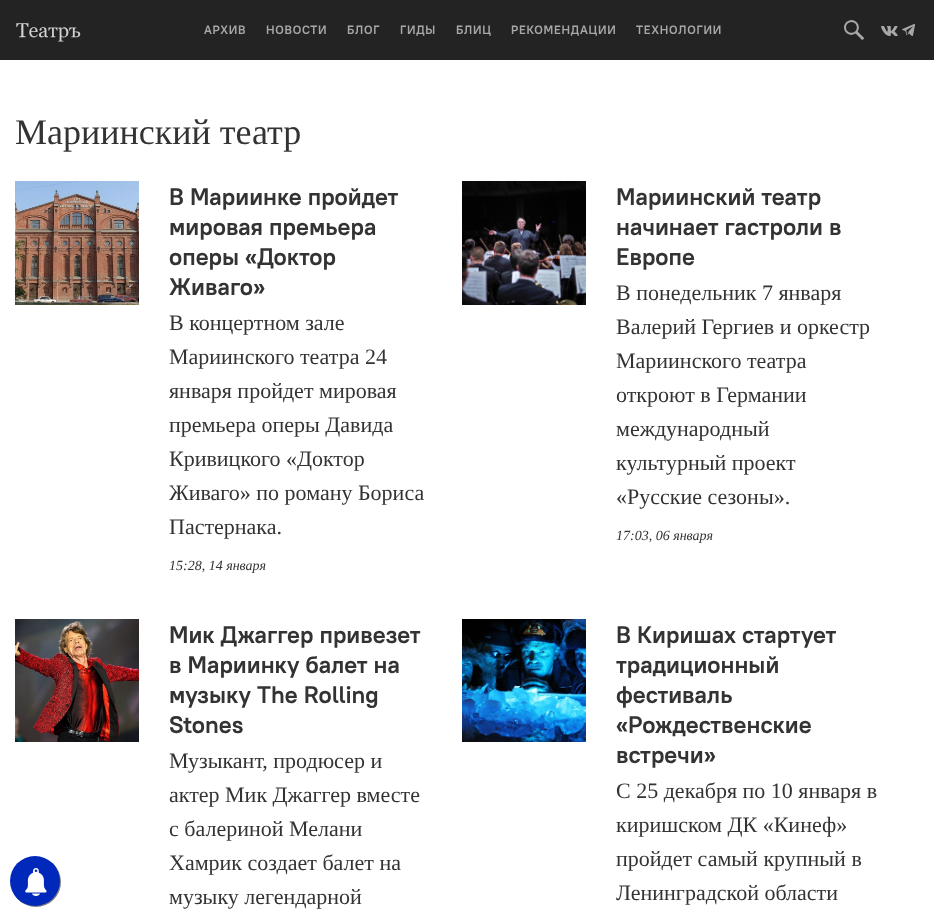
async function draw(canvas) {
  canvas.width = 934
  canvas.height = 916
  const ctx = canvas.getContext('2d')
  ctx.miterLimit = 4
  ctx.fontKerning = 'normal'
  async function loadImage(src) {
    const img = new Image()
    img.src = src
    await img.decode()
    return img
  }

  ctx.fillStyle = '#fff'
  ctx.fillRect(0, 0, 934, 916)
  ctx.fillStyle = '#232323'
  ctx.fillRect(0, 0, 934, 60)
  ctx.drawImage(await loadImage('image0.png'), 16, 23, 65, 19)
  ctx.letterSpacing = '0.75px'
  ctx.font = 'bold 12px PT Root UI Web'
  ctx.fillStyle = '#a7a7a7'
  ctx.fillText('АРХИВ', 204, 34)
  ctx.fillText('НОВОСТИ', 266, 34)
  ctx.fillText('БЛОГ', 347, 34)
  ctx.fillText('ГИДЫ', 400, 34)
  ctx.fillText('БЛИЦ', 456, 34)
  ctx.fillText('РЕКОМЕНДАЦИИ', 511, 34)
  ctx.fillText('ТЕХНОЛОГИИ', 636, 34)
  ctx.drawImage(await loadImage('image1.png'), 844, 20, 20, 20)
  ctx.drawImage(await loadImage('image2.png'), 881, 26, 17, 10)
  ctx.drawImage(await loadImage('image3.png'), 902, 24, 13, 12)
  ctx.letterSpacing = '0px'
  ctx.font = '36px Liberation Serif'
  ctx.fillStyle = '#333'
  ctx.fillText('Мариинский театр', 15, 144)
  ctx.drawImage(await loadImage('image4.png'), 15, 181, 124, 124)
  ctx.font = 'bold 24px PT Root UI Web'
  ctx.fillText('В Мариинке пройдет', 169, 205)
  ctx.fillText('мировая премьера', 169, 235)
  ctx.fillText('оперы «Доктор', 169, 265)
  ctx.fillText('Живаго»', 169, 295)
  ctx.font = '22px Liberation Serif'
  ctx.fillText('В концертном зале', 169, 330)
  ctx.fillText('Мариинского театра 24', 169, 364)
  ctx.fillText('января пройдет мировая', 169, 398)
  ctx.fillText('премьера оперы Давида', 169, 432)
  ctx.fillText('Кривицкого «Доктор', 169, 466)
  ctx.fillText('Живаго» по роману Бориса', 169, 500)
  ctx.fillText('Пастернака.', 169, 534)
  ctx.font = 'italic 14px Liberation Serif'
  ctx.fillText('15:28, 14 января', 169, 570)
  ctx.drawImage(await loadImage('image5.png'), 462, 181, 124, 124)
  ctx.font = 'bold 24px PT Root UI Web'
  ctx.fillText('Мариинский театр', 616, 205)
  ctx.fillText('начинает гастроли в', 616, 235)
  ctx.fillText('Европе', 616, 265)
  ctx.font = '22px Liberation Serif'
  ctx.fillText('В понедельник 7 января', 616, 300)
  ctx.fillText('Валерий Гергиев и оркестр', 616, 334)
  ctx.fillText('Мариинского театра', 616, 368)
  ctx.fillText('откроют в Германии', 616, 402)
  ctx.fillText('международный', 616, 436)
  ctx.fillText('культурный проект', 616, 470)
  ctx.fillText('«Русские сезоны».', 616, 504)
  ctx.font = 'italic 14px Liberation Serif'
  ctx.fillText('17:03, 06 января', 616, 540)
  ctx.drawImage(await loadImage('image6.png'), 15, 619, 124, 123)
  ctx.font = 'bold 24px PT Root UI Web'
  ctx.fillText('Мик Джаггер привезет', 169, 643)
  ctx.fillText('в Мариинку балет на', 169, 673)
  ctx.fillText('музыку The Rolling', 169, 703)
  ctx.fillText('Stones', 169, 733)
  ctx.font = '22px Liberation Serif'
  ctx.fillText('Музыкант, продюсер и', 169, 768)
  ctx.fillText('актер Мик Джаггер вместе', 169, 802)
  ctx.fillText('с балериной Мелани', 169, 836)
  ctx.fillText('Хамрик создает балет на', 169, 870)
  ctx.fillText('музыку легендарной', 169, 904)
  ctx.drawImage(await loadImage('image7.png'), 462, 619, 124, 123)
  ctx.font = 'bold 24px PT Root UI Web'
  ctx.fillText('В Киришах стартует', 616, 643)
  ctx.fillText('традиционный', 616, 673)
  ctx.fillText('фестиваль', 616, 703)
  ctx.fillText('«Рождественские', 616, 733)
  ctx.fillText('встречи»', 616, 763)
  ctx.font = '22px Liberation Serif'
  ctx.fillText('С 25 декабря по 10 января в', 616, 798)
  ctx.fillText('киришском ДК «Кинеф»', 616, 832)
  ctx.fillText('пройдет самый крупный в', 616, 866)
  ctx.fillText('Ленинградской области', 616, 900)
  ctx.fillStyle = '#00000080'
  ctx.filter = 'blur(0.5px)'
  ctx.beginPath()
  ctx.roundRect(11, 857, 50, 50, 25)
  ctx.fill()
  ctx.filter = 'none'
  ctx.fillStyle = '#0028bb'
  ctx.beginPath()
  ctx.arc(35, 881, 25, 0, 2 * Math.PI)
  ctx.fill()
  ctx.drawImage(await loadImage('image8.png'), 25, 868, 22, 28)
}

draw(document.querySelector('canvas'))
